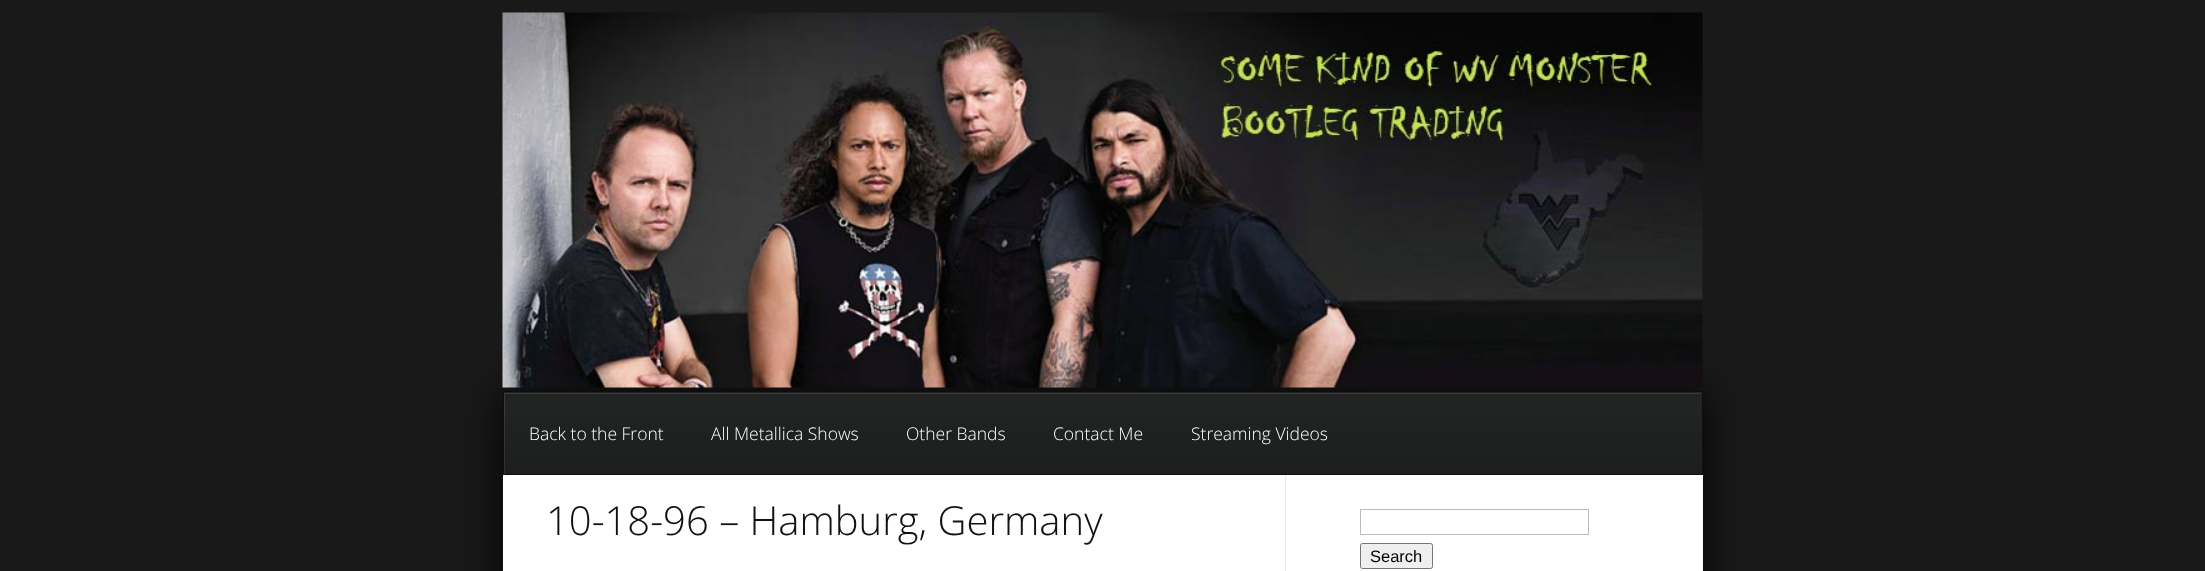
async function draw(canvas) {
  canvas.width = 2205
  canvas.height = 571
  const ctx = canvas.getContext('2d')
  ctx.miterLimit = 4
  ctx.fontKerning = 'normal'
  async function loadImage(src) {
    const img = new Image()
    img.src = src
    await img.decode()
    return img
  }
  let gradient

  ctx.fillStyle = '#191919'
  ctx.fillRect(0, 0, 2205, 571)
  ctx.fillStyle = '#000000e6'
  ctx.filter = 'blur(22px)'
  ctx.beginPath()
  ctx.rect(503, 391, 1200, 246)
  ctx.fill()
  ctx.filter = 'none'
  ctx.drawImage(await loadImage('image0.png'), 502, 12, 1201, 376)
  ctx.fillStyle = '#fff'
  ctx.fillRect(503, 475, 1200, 96)
  ctx.fillStyle = '#222323'
  ctx.fillRect(504, 392, 1198, 82)
  ctx.save()
  ctx.beginPath()
  ctx.rect(504, 393, 1197, 81)
  ctx.clip()
  ctx.fillStyle = '#383939'
  ctx.beginPath()
  ctx.moveTo(380, 269)
  ctx.lineTo(1825, 269)
  ctx.lineTo(1825, 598)
  ctx.lineTo(380, 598)
  ctx.closePath()
  ctx.moveTo(505, 394)
  ctx.lineTo(1702, 394)
  ctx.lineTo(1702, 475)
  ctx.lineTo(505, 475)
  ctx.closePath()
  ctx.fill('evenodd')
  ctx.restore()
  ctx.strokeStyle = '#0d0d0d'
  ctx.strokeRect(503.5, 391.5, 1199, 83)
  gradient = ctx.createLinearGradient(1103, 392, 1103, 474)
  gradient.addColorStop(0, '#00000000')
  gradient.addColorStop(1, '#00000026')
  ctx.fillStyle = gradient
  ctx.fillRect(504, 417, 1197, 57)
  ctx.font = '300 17.5px Open Sans'
  ctx.fillStyle = '#fff'
  ctx.fillText('Back to the Front', 529, 440)
  ctx.fillText('All Metallica Shows', 711, 440)
  ctx.fillText('Other Bands', 906, 440)
  ctx.fillText('Contact Me', 1053, 440)
  ctx.fillText('Streaming Videos', 1191, 440)
  ctx.font = '300 40px Open Sans'
  ctx.fillStyle = '#111'
  ctx.fillText('10-18-96 – Hamburg, Germany', 546, 535)
  ctx.fillStyle = '#eaeaea'
  ctx.fillRect(1285, 475, 1, 96)
  ctx.strokeStyle = '#bbb'
  ctx.strokeRect(1360.5, 509.5, 228, 25)
  ctx.fillStyle = '#efefef'
  ctx.beginPath()
  ctx.roundRect(1360.5, 543.5, 72, 25, 2)
  ctx.fill()
  ctx.strokeStyle = '#767676'
  ctx.stroke()
  ctx.font = '16.5px Liberation Sans'
  ctx.fillStyle = '#000'
  ctx.fillText('Search', 1370, 562)
}

draw(document.querySelector('canvas'))
